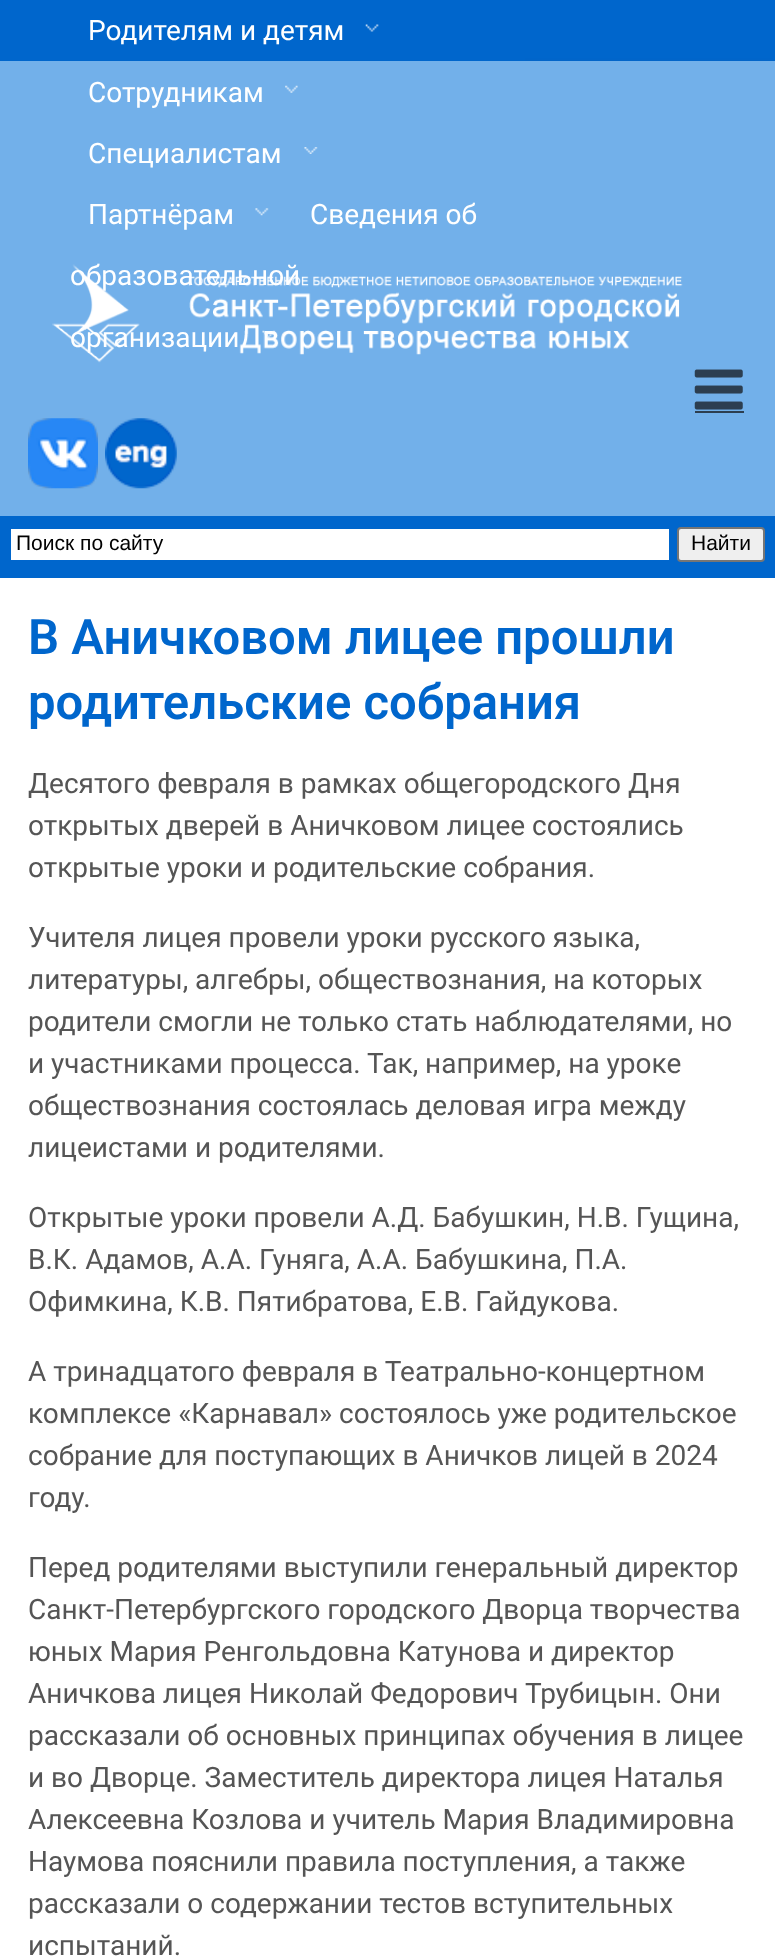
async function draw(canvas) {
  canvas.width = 775
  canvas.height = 1959
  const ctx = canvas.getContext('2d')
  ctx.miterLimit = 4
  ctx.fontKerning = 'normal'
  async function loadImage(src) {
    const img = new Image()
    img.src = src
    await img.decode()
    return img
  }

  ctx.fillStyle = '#fff'
  ctx.fillRect(0, 0, 775, 1959)
  ctx.fillStyle = '#06c'
  ctx.fillRect(525, 0, 250, 61)
  ctx.fillStyle = '#47494833'
  ctx.filter = 'blur(2px)'
  ctx.beginPath()
  ctx.rect(0, 63, 775, 455)
  ctx.fill()
  ctx.filter = 'none'
  ctx.fillStyle = '#06c'
  ctx.fillRect(0, 0, 525, 61)
  ctx.font = '28px Roboto'
  ctx.fillStyle = '#fff'
  ctx.fillText('Родителям и детям', 88, 40)
  ctx.drawImage(await loadImage('image0.png'), 365, 24, 14, 8)
  ctx.fillStyle = '#72b0ea'
  ctx.fillRect(0, 61, 775, 455)
  ctx.fillStyle = '#fff'
  ctx.fillText('Сотрудникам', 88, 102)
  ctx.drawImage(await loadImage('image1.png'), 285, 85, 13, 8)
  ctx.fillText('Специалистам', 88, 163)
  ctx.drawImage(await loadImage('image2.png'), 304, 147, 14, 7)
  ctx.fillText('Партнёрам', 88, 224)
  ctx.drawImage(await loadImage('image3.png'), 255, 208, 14, 8)
  ctx.fillText('Сведения об', 310, 224)
  ctx.drawImage(await loadImage('image5.png'), 52, 264, 631, 99)
  ctx.fillText('образовательной', 70, 285)
  ctx.fillText('организации', 70, 347)
  ctx.drawImage(await loadImage('image4.png'), 262, 330, 14, 8)
  ctx.drawImage(await loadImage('image6.png'), 694, 369, 49, 41)
  ctx.fillStyle = '#2c3e50'
  ctx.fillRect(695, 411, 49, 2)
  ctx.drawImage(await loadImage('image7.png'), 28, 418, 70, 71)
  ctx.drawImage(await loadImage('image8.png'), 105, 418, 72, 71)
  ctx.fillStyle = '#06c'
  ctx.fillRect(0, 516, 775, 62)
  ctx.fillStyle = '#fff'
  ctx.fillRect(11, 529, 658, 31)
  ctx.font = '21px Liberation Sans'
  ctx.fillStyle = '#000'
  ctx.fillText('Поиск по сайту', 16, 550)
  ctx.fillStyle = '#efefef'
  ctx.beginPath()
  ctx.roundRect(678, 528, 86, 33, 3)
  ctx.fill()
  ctx.strokeStyle = '#767676'
  ctx.lineWidth = 2
  ctx.stroke()
  ctx.fillStyle = '#000'
  ctx.fillText('Найти', 691, 550)
  ctx.font = '600 49px Roboto'
  ctx.fillStyle = '#06c'
  ctx.fillText('В Аничковом лицее прошли', 28, 654)
  ctx.fillText('родительские собрания', 28, 719)
  ctx.font = '28px Roboto'
  ctx.fillStyle = '#555'
  ctx.fillText('Десятого февраля в рамках общегородского Дня', 28, 793)
  ctx.fillText('открытых дверей в Аничковом лицее состоялись', 28, 835)
  ctx.fillText('открытые уроки и родительские собрания.', 28, 877)
  ctx.fillText('Учителя лицея провели уроки русского языка,', 28, 947)
  ctx.fillText('литературы, алгебры, обществознания, на которых', 28, 989)
  ctx.fillText('родители смогли не только стать наблюдателями, но', 28, 1031)
  ctx.fillText('и участниками процесса. Так, например, на уроке', 28, 1073)
  ctx.fillText('обществознания состоялась деловая игра между', 28, 1115)
  ctx.fillText('лицеистами и родителями.', 28, 1157)
  ctx.fillText('Открытые уроки провели А.Д. Бабушкин, Н.В. Гущина,', 28, 1227)
  ctx.fillText('В.К. Адамов, А.А. Гуняга, А.А. Бабушкина, П.А.', 28, 1269)
  ctx.fillText('Офимкина, К.В. Пятибратова, Е.В. Гайдукова.', 28, 1311)
  ctx.fillText('А тринадцатого февраля в Театрально-концертном', 28, 1381)
  ctx.fillText('комплексе «Карнавал» состоялось уже родительское', 28, 1423)
  ctx.fillText('собрание для поступающих в Аничков лицей в 2024', 28, 1465)
  ctx.fillText('году.', 28, 1507)
  ctx.fillText('Перед родителями выступили генеральный директор', 28, 1577)
  ctx.fillText('Санкт-Петербургского городского Дворца творчества', 28, 1619)
  ctx.fillText('юных Мария Ренгольдовна Катунова и директор', 28, 1661)
  ctx.fillText('Аничкова лицея Николай Федорович Трубицын. Они', 28, 1703)
  ctx.fillText('рассказали об основных принципах обучения в лицее', 28, 1745)
  ctx.fillText('и во Дворце. Заместитель директора лицея Наталья', 28, 1787)
  ctx.fillText('Алексеевна Козлова и учитель Мария Владимировна', 28, 1829)
  ctx.fillText('Наумова пояснили правила поступления, а также', 28, 1871)
  ctx.fillText('рассказали о содержании тестов вступительных', 28, 1913)
  ctx.fillText('испытаний.', 28, 1955)
}

draw(document.querySelector('canvas'))
